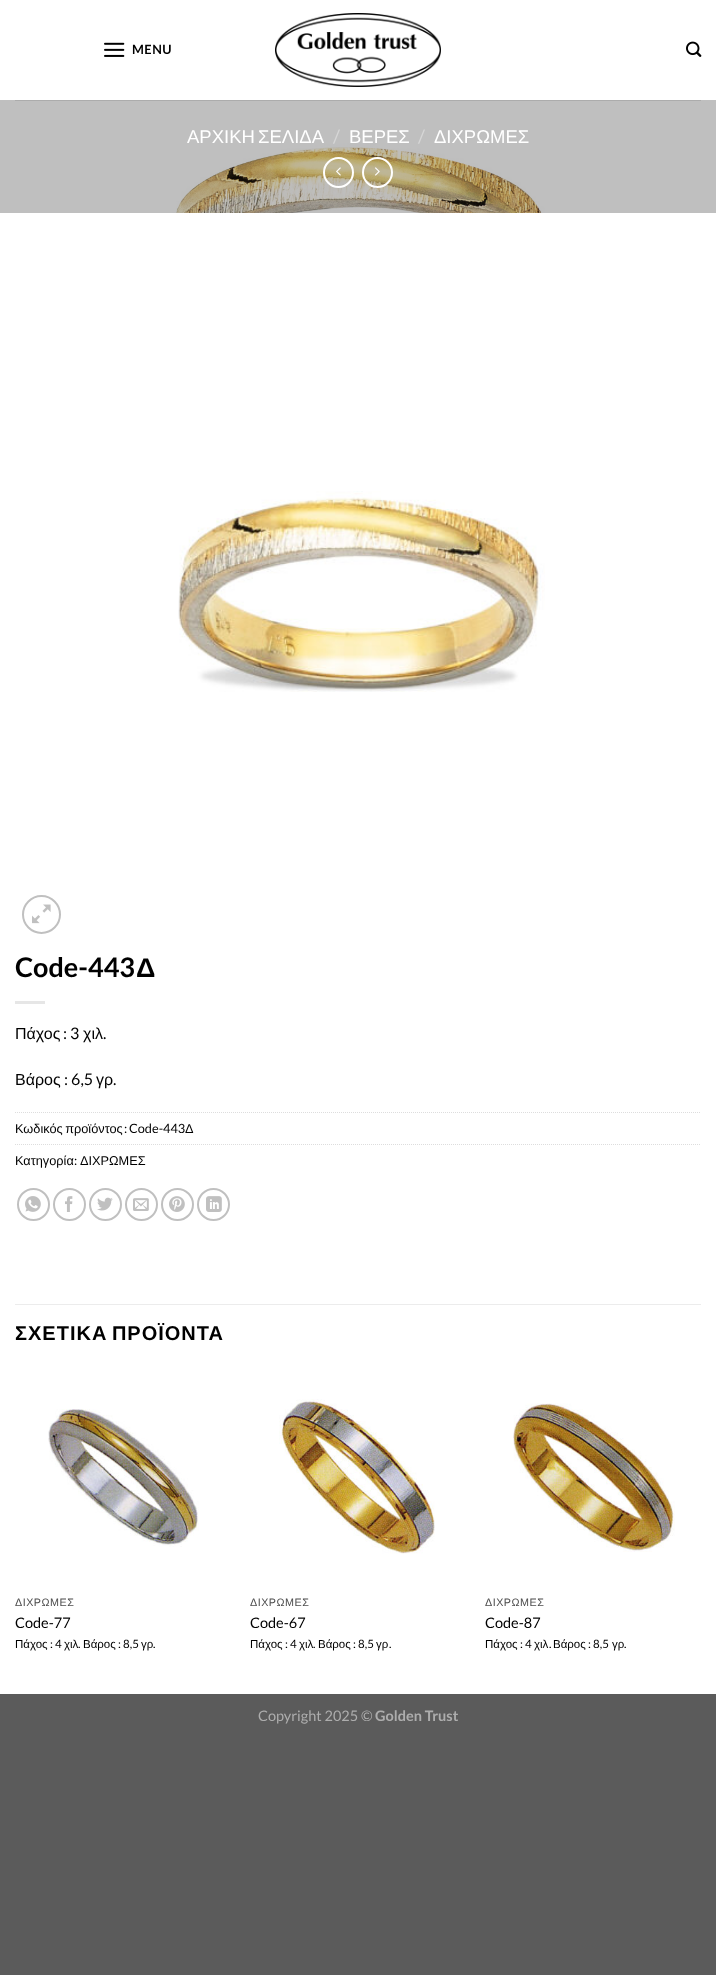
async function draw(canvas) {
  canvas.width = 716
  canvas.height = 1975
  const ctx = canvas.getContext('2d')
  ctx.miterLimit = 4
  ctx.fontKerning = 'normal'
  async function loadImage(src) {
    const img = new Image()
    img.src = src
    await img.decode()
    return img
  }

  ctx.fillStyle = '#5b5b5b'
  ctx.fillRect(0, 0, 716, 1975)
  ctx.fillStyle = '#fff'
  ctx.fillRect(0, 0, 716, 1694)
  ctx.drawImage(await loadImage('image0.png'), 104, 42, 21, 15)
  ctx.letterSpacing = '0.5px'
  ctx.font = 'bold 12.75px Lato'
  ctx.fillStyle = '#000'
  ctx.fillText('MENU', 132, 54)
  ctx.drawImage(await loadImage('image1.png'), 275, 13, 166, 74)
  ctx.drawImage(await loadImage('image2.png'), 686, 41, 16, 16)
  ctx.drawImage(await loadImage('image3.png'), 0, 100, 716, 113)
  ctx.fillStyle = '#acacac'
  ctx.fillRect(15, 100, 686, 1)
  ctx.letterSpacing = '0px'
  ctx.wordSpacing = '-2px'
  ctx.font = '18.5px Liberation Sans'
  ctx.fillStyle = '#fff'
  ctx.fillText('ΑΡΧΙΚΗ ΣΕΛΙΔΑ', 187, 143)
  ctx.wordSpacing = '0px'
  ctx.font = '18.5px Lato'
  ctx.fillStyle = '#d6d6d6'
  ctx.fillText('/', 333, 143)
  ctx.font = '18.5px Liberation Sans'
  ctx.fillStyle = '#fff'
  ctx.fillText('ΒΕΡΕΣ', 349, 143)
  ctx.font = '18.5px Lato'
  ctx.fillStyle = '#d6d6d6'
  ctx.fillText('/', 418, 143)
  ctx.font = '18.5px Liberation Sans'
  ctx.fillStyle = '#fff'
  ctx.fillText('ΔΙΧΡΩΜΕΣ', 434, 143)
  ctx.beginPath()
  ctx.arc(338.5, 172.5, 14.5, 0, 2 * Math.PI)
  ctx.strokeStyle = '#fff'
  ctx.lineWidth = 2
  ctx.stroke()
  ctx.drawImage(await loadImage('image4.png'), 336, 167, 5, 9)
  ctx.beginPath()
  ctx.arc(377.5, 172.5, 14.5, 0, 2 * Math.PI)
  ctx.stroke()
  ctx.drawImage(await loadImage('image5.png'), 375, 167, 5, 9)
  ctx.drawImage(await loadImage('image6.png'), 178, 491, 367, 201)
  ctx.beginPath()
  ctx.arc(41.5, 914.5, 18.5, 0, 2 * Math.PI)
  ctx.strokeStyle = '#c0c0c0'
  ctx.stroke()
  ctx.drawImage(await loadImage('image7.png'), 32, 904, 19, 20)
  ctx.font = 'bold 27px Lato'
  ctx.fillStyle = '#000'
  ctx.fillText('Code-443', 15, 977)
  ctx.font = 'bold 27px Liberation Sans'
  ctx.fillText('Δ', 136, 977)
  ctx.fillStyle = '#e6e6e6'
  ctx.fillRect(15, 1001, 30, 3)
  ctx.font = '16px Liberation Sans'
  ctx.fillStyle = '#000'
  ctx.fillText('Πάχος', 15, 1039)
  ctx.font = '16px Lato'
  ctx.fillText(': 3', 63, 1039)
  ctx.font = '16px Liberation Sans'
  ctx.fillText('χιλ', 83, 1039)
  ctx.font = '16px Lato'
  ctx.fillText('.', 103, 1039)
  ctx.font = '16px Liberation Sans'
  ctx.fillText('Βάρος', 15, 1085)
  ctx.font = '16px Lato'
  ctx.fillText(': 6,5', 64, 1085)
  ctx.font = '16px Liberation Sans'
  ctx.fillText('γρ', 96, 1085)
  ctx.font = '16px Lato'
  ctx.fillText('.', 113, 1085)
  ctx.beginPath()
  ctx.moveTo(15, 1112.5)
  ctx.lineTo(701, 1112.5)
  ctx.strokeStyle = '#ddd'
  ctx.lineWidth = 1
  ctx.setLineDash([1, 1])
  ctx.stroke()
  ctx.wordSpacing = '-1px'
  ctx.font = '12.75px Liberation Sans'
  ctx.fillText('Κωδικός προϊόντος', 15, 1133)
  ctx.wordSpacing = '0px'
  ctx.font = '12.75px Lato'
  ctx.fillText(':', 124, 1133)
  ctx.fillText('Code-443', 129, 1133)
  ctx.font = '12.75px Liberation Sans'
  ctx.fillText('Δ', 185, 1133)
  ctx.beginPath()
  ctx.moveTo(15, 1144.5)
  ctx.lineTo(701, 1144.5)
  ctx.stroke()
  ctx.fillText('Κατηγορία', 15, 1165)
  ctx.font = '12.75px Lato'
  ctx.fillText(':', 74, 1165)
  ctx.font = '12.75px Liberation Sans'
  ctx.fillText('ΔΙΧΡΩΜΕΣ', 80, 1165)
  ctx.beginPath()
  ctx.arc(33.5, 1204.5, 15.5, 0, 2 * Math.PI)
  ctx.strokeStyle = '#c0c0c0'
  ctx.lineWidth = 2
  ctx.setLineDash([])
  ctx.stroke()
  ctx.drawImage(await loadImage('image8.png'), 25, 1196, 16, 16)
  ctx.beginPath()
  ctx.arc(69.5, 1204.5, 15.5, 0, 2 * Math.PI)
  ctx.stroke()
  ctx.drawImage(await loadImage('image9.png'), 65, 1196, 8, 16)
  ctx.beginPath()
  ctx.arc(105.5, 1204.5, 15.5, 0, 2 * Math.PI)
  ctx.stroke()
  ctx.drawImage(await loadImage('image10.png'), 97, 1197, 16, 14)
  ctx.beginPath()
  ctx.arc(141.5, 1204.5, 15.5, 0, 2 * Math.PI)
  ctx.stroke()
  ctx.drawImage(await loadImage('image11.png'), 133, 1198, 16, 13)
  ctx.beginPath()
  ctx.arc(177.5, 1204.5, 15.5, 0, 2 * Math.PI)
  ctx.stroke()
  ctx.drawImage(await loadImage('image12.png'), 169, 1196, 16, 16)
  ctx.beginPath()
  ctx.arc(213.5, 1204.5, 15.5, 0, 2 * Math.PI)
  ctx.stroke()
  ctx.drawImage(await loadImage('image13.png'), 206, 1196, 16, 16)
  ctx.fillStyle = '#ececec'
  ctx.fillRect(15, 1304, 686, 1)
  ctx.letterSpacing = '1px'
  ctx.wordSpacing = '-2px'
  ctx.font = 'bold 20px Liberation Sans'
  ctx.fillStyle = '#000'
  ctx.fillText('ΣΧΕΤΙΚΑ ΠΡΟΪΟΝΤΑ', 15, 1340)
  ctx.drawImage(await loadImage('image14.png'), 48, 1409, 151, 138)
  ctx.letterSpacing = '0.5px'
  ctx.wordSpacing = '0px'
  ctx.font = '10.75px Liberation Sans'
  ctx.fillStyle = '#4d4d4d'
  ctx.fillText('ΔΙΧΡΩΜΕΣ', 15, 1606)
  ctx.letterSpacing = '0px'
  ctx.font = '14.5px Lato'
  ctx.fillStyle = '#000'
  ctx.fillText('Code-77', 15, 1628)
  ctx.font = '11.5px Liberation Sans'
  ctx.fillText('Πάχος', 15, 1648)
  ctx.font = '11.5px Lato'
  ctx.fillText(': 4', 50, 1648)
  ctx.font = '11.5px Liberation Sans'
  ctx.fillText('χιλ', 64, 1648)
  ctx.font = '11.5px Lato'
  ctx.fillText('.', 78, 1648)
  ctx.font = '11.5px Liberation Sans'
  ctx.fillText('Βάρος', 83, 1648)
  ctx.font = '11.5px Lato'
  ctx.fillText(': 8,5', 118, 1648)
  ctx.font = '11.5px Liberation Sans'
  ctx.fillText('γρ', 141, 1648)
  ctx.font = '11.5px Lato'
  ctx.fillText('.', 153, 1648)
  ctx.drawImage(await loadImage('image15.png'), 279, 1399, 156, 155)
  ctx.letterSpacing = '0.5px'
  ctx.font = '10.75px Liberation Sans'
  ctx.fillStyle = '#4d4d4d'
  ctx.fillText('ΔΙΧΡΩΜΕΣ', 250, 1606)
  ctx.letterSpacing = '0px'
  ctx.font = '14.5px Lato'
  ctx.fillStyle = '#000'
  ctx.fillText('Code-67', 250, 1628)
  ctx.font = '11.5px Liberation Sans'
  ctx.fillText('Πάχος', 250, 1648)
  ctx.font = '11.5px Lato'
  ctx.fillText(': 4', 285, 1648)
  ctx.font = '11.5px Liberation Sans'
  ctx.fillText('χιλ', 299, 1648)
  ctx.font = '11.5px Lato'
  ctx.fillText('.', 313, 1648)
  ctx.font = '11.5px Liberation Sans'
  ctx.fillText('Βάρος', 318, 1648)
  ctx.font = '11.5px Lato'
  ctx.fillText(': 8,5', 353, 1648)
  ctx.font = '11.5px Liberation Sans'
  ctx.fillText('γρ', 376, 1648)
  ctx.font = '11.5px Lato'
  ctx.fillText('.', 389, 1648)
  ctx.drawImage(await loadImage('image16.png'), 513, 1403, 162, 149)
  ctx.letterSpacing = '0.5px'
  ctx.font = '10.75px Liberation Sans'
  ctx.fillStyle = '#4d4d4d'
  ctx.fillText('ΔΙΧΡΩΜΕΣ', 485, 1606)
  ctx.letterSpacing = '0px'
  ctx.font = '14.5px Lato'
  ctx.fillStyle = '#000'
  ctx.fillText('Code-87', 485, 1628)
  ctx.font = '11.5px Liberation Sans'
  ctx.fillText('Πάχος', 485, 1648)
  ctx.font = '11.5px Lato'
  ctx.fillText(': 4', 520, 1648)
  ctx.font = '11.5px Liberation Sans'
  ctx.fillText('χιλ', 534, 1648)
  ctx.font = '11.5px Lato'
  ctx.fillText('.', 549, 1648)
  ctx.font = '11.5px Liberation Sans'
  ctx.fillText('Βάρος', 553, 1648)
  ctx.font = '11.5px Lato'
  ctx.fillText(': 8,5', 588, 1648)
  ctx.font = '11.5px Liberation Sans'
  ctx.fillText('γρ', 612, 1648)
  ctx.font = '11.5px Lato'
  ctx.fillText('.', 624, 1648)
  ctx.font = '14.5px Lato'
  ctx.fillStyle = '#adadad'
  ctx.fillText('Copyright 2025 ©', 258, 1721)
  ctx.font = 'bold 14.5px Lato'
  ctx.fillText('Golden Trust', 375, 1721)
}

draw(document.querySelector('canvas'))
